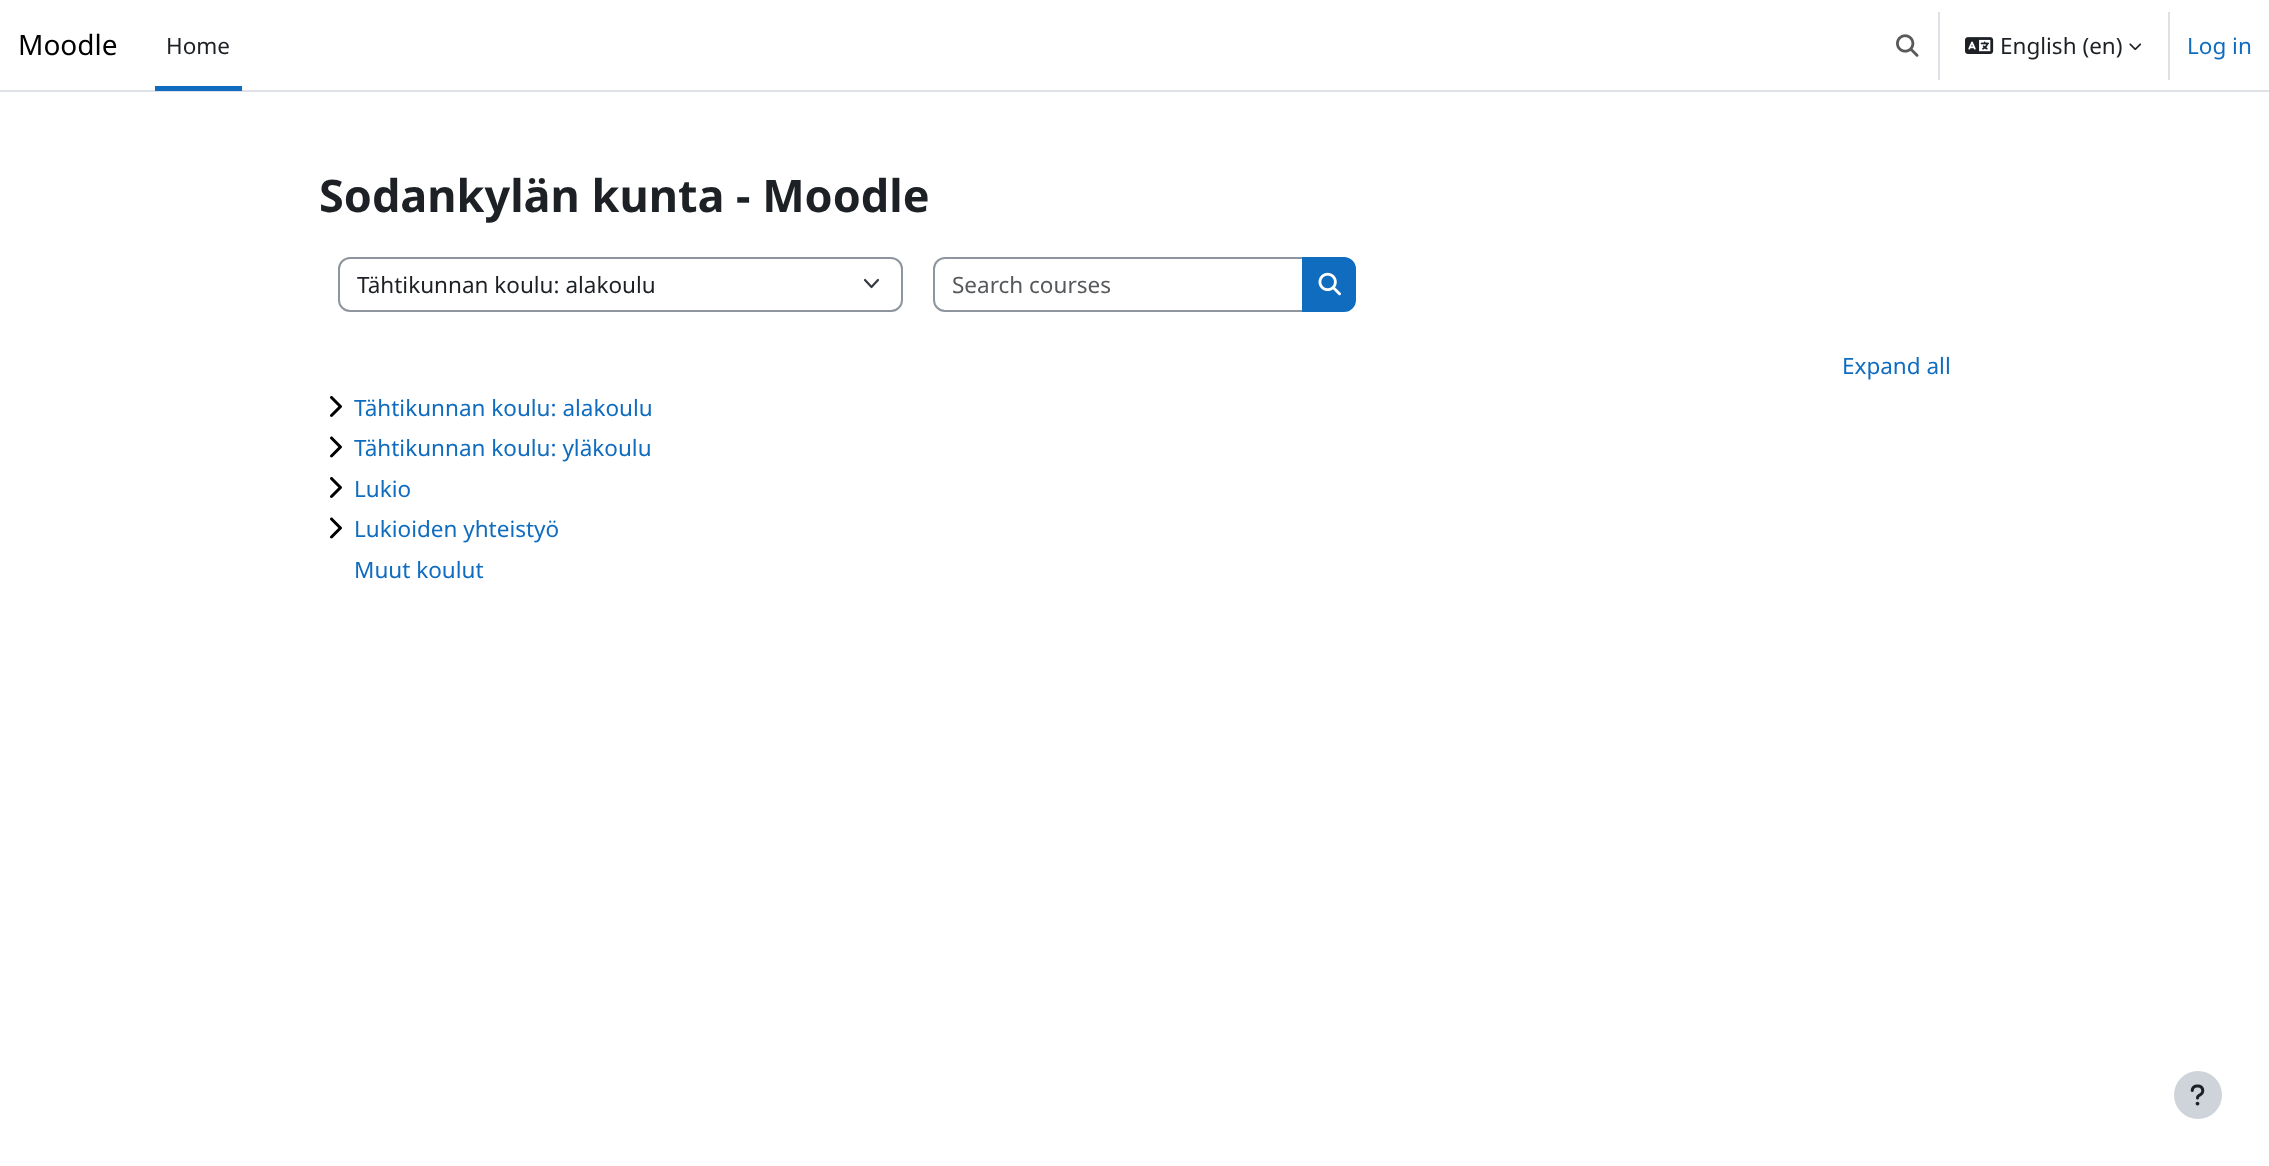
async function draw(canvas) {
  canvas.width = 2269
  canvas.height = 1166
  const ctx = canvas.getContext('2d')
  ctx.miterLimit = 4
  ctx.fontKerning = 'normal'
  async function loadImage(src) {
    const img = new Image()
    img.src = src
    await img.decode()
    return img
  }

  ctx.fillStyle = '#fff'
  ctx.fillRect(0, 0, 2269, 1166)
  ctx.fillStyle = '#dee2e6'
  ctx.fillRect(0, 90, 2269, 2)
  ctx.font = '28px Noto Sans'
  ctx.fillStyle = '#000'
  ctx.fillText('Moodle', 18, 55)
  ctx.fillStyle = '#0f6cbf'
  ctx.fillRect(155, 86, 87, 5)
  ctx.font = '22.5px Noto Sans'
  ctx.fillStyle = '#1d2125'
  ctx.fillText('Home', 166, 54)
  ctx.drawImage(await loadImage('image0.png'), 1896, 34, 23, 23)
  ctx.fillStyle = '#dee2e6'
  ctx.fillRect(1938, 12, 2, 68)
  ctx.drawImage(await loadImage('image1.png'), 1965, 37, 29, 17)
  ctx.fillStyle = '#1d2125'
  ctx.fillText('English (en)', 2000, 54)
  ctx.drawImage(await loadImage('image2.png'), 2129, 43, 13, 8)
  ctx.fillStyle = '#dee2e6'
  ctx.fillRect(2168, 12, 2, 68)
  ctx.fillStyle = '#0f6cbf'
  ctx.fillText('Log in', 2187, 54)
  ctx.font = 'bold 45px Noto Sans'
  ctx.fillStyle = '#1d2125'
  ctx.fillText('Sodankylän kunta - Moodle', 319, 212)
  ctx.beginPath()
  ctx.moveTo(865, 280)
  ctx.lineTo(871.5, 287)
  ctx.lineTo(878, 280)
  ctx.strokeStyle = '#343a40'
  ctx.lineWidth = 2.2
  ctx.lineCap = 'round'
  ctx.lineJoin = 'round'
  ctx.stroke()
  ctx.beginPath()
  ctx.roundRect(339, 258, 563, 53, 11)
  ctx.strokeStyle = '#8f959e'
  ctx.lineWidth = 2
  ctx.lineJoin = 'miter'
  ctx.stroke()
  ctx.font = '22.5px Noto Sans'
  ctx.fillText('Tähtikunnan koulu: alakoulu', 357, 293)
  ctx.beginPath()
  ctx.roundRect(934, 258, 370, 53, [11, 0, 0, 11])
  ctx.stroke()
  ctx.fillStyle = '#56595c'
  ctx.fillText('Search courses', 952, 293)
  ctx.fillStyle = '#0f6cbf'
  ctx.beginPath()
  ctx.roundRect(1303, 258, 52, 53, [0, 11, 11, 0])
  ctx.fill()
  ctx.strokeStyle = '#0f6cbf'
  ctx.stroke()
  ctx.drawImage(await loadImage('image3.png'), 1318, 272, 23, 24)
  ctx.fillText('Expand all', 1842, 374)
  ctx.drawImage(await loadImage('image4.png'), 330, 396, 12, 21)
  ctx.fillText('Tähtikunnan koulu: alakoulu', 354, 416)
  ctx.drawImage(await loadImage('image5.png'), 330, 436, 12, 22)
  ctx.fillText('Tähtikunnan koulu: yläkoulu', 354, 456)
  ctx.drawImage(await loadImage('image4.png'), 330, 477, 12, 21)
  ctx.fillText('Lukio', 354, 497)
  ctx.drawImage(await loadImage('image5.png'), 330, 517, 12, 22)
  ctx.fillText('Lukioiden yhteistyö', 354, 537)
  ctx.fillText('Muut koulut', 354, 578)
  ctx.fillStyle = '#ced4da'
  ctx.beginPath()
  ctx.arc(2198, 1095, 24, 0, 2 * Math.PI)
  ctx.fill()
  ctx.drawImage(await loadImage('image6.png'), 2190, 1084, 15, 22)
}

draw(document.querySelector('canvas'))
